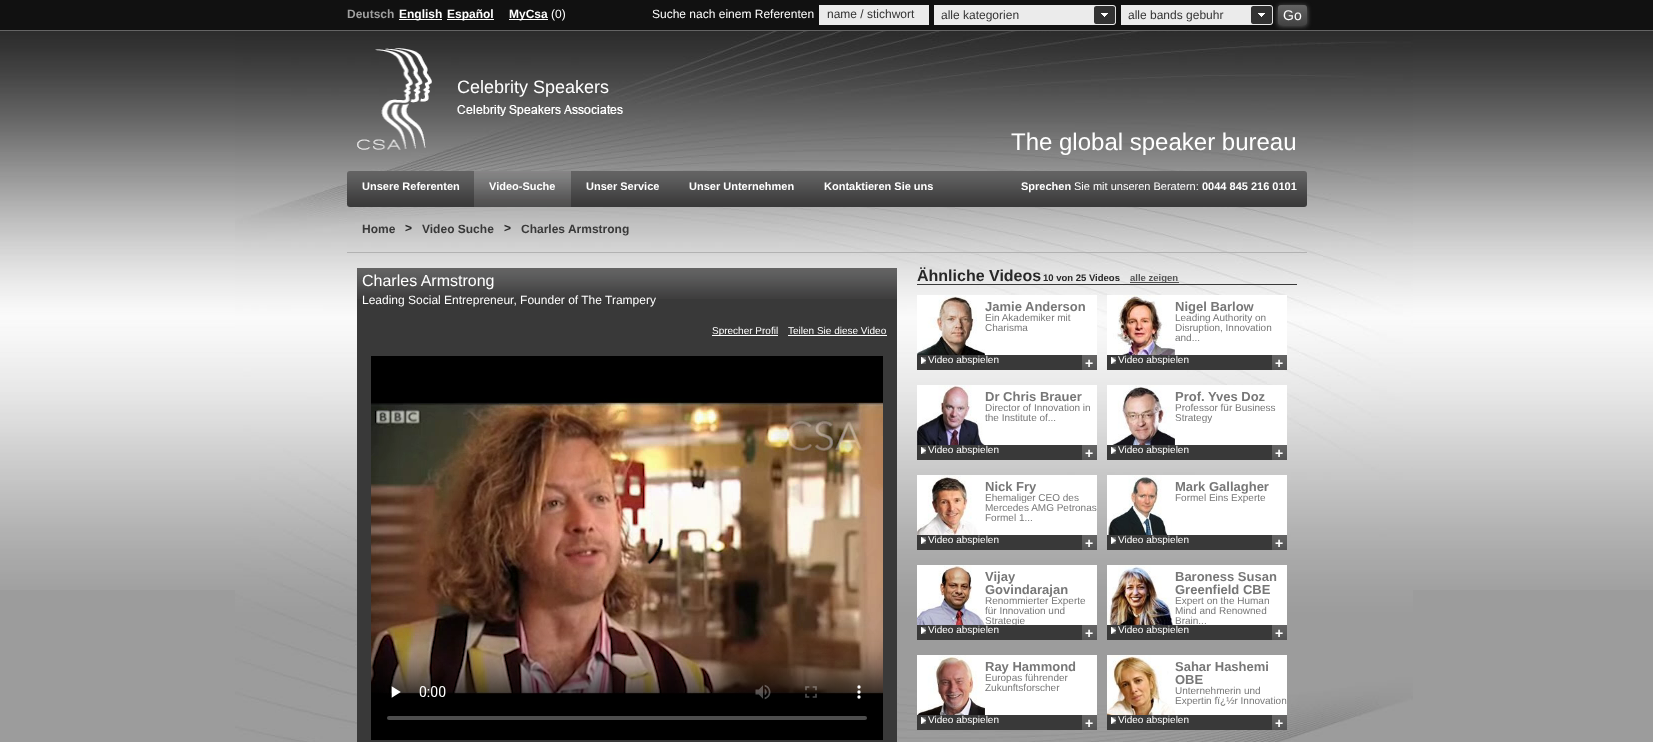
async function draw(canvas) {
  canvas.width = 1653
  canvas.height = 742
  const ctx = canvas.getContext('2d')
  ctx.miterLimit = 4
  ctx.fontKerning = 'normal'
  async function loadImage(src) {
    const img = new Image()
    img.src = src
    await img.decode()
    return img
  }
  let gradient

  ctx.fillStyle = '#9c9c9c'
  ctx.fillRect(0, 0, 1653, 742)
  ctx.drawImage(await loadImage('image0.png'), 0, 31, 1653, 559)
  ctx.drawImage(await loadImage('image1.png'), 235, 31, 1178, 711)
  ctx.fillStyle = '#111'
  ctx.fillRect(0, 0, 1653, 30)
  ctx.fillStyle = '#656565'
  ctx.fillRect(0, 30, 1653, 1)
  ctx.font = 'bold 12px Liberation Sans'
  ctx.fillStyle = '#9f9f9f'
  ctx.fillText('Deutsch', 347, 18)
  ctx.fillStyle = '#fff'
  ctx.fillRect(399, 19, 43, 1)
  ctx.fillText('English', 399, 18)
  ctx.fillRect(447, 19, 47, 1)
  ctx.fillText('Español', 447, 18)
  ctx.fillRect(509, 19, 39, 1)
  ctx.fillText('MyCsa', 509, 18)
  ctx.font = '12px Liberation Sans'
  ctx.fillText('(0)', 551, 18)
  ctx.fillText('Suche nach einem Referenten', 652, 18)
  ctx.fillStyle = '#ebebeb'
  ctx.fillRect(819, 5, 110, 20)
  ctx.fillStyle = '#333'
  ctx.fillText('name / stichwort', 827, 18)
  ctx.fillStyle = '#ebebeb'
  ctx.fillRect(934, 5, 160, 20)
  ctx.fillStyle = '#333'
  ctx.fillText('alle kategorien', 941, 19)
  ctx.drawImage(await loadImage('image2.png'), 1094, 5, 22, 20)
  ctx.fillStyle = '#ebebeb'
  ctx.fillRect(1121, 5, 130, 20)
  ctx.fillStyle = '#333'
  ctx.fillText('alle bands gebuhr', 1128, 19)
  ctx.fillStyle = '#666'
  ctx.filter = 'blur(2.5px)'
  ctx.beginPath()
  ctx.roundRect(1278, 6, 29, 20, 3)
  ctx.fill()
  ctx.filter = 'none'
  ctx.drawImage(await loadImage('image2.png'), 1251, 5, 22, 20)
  gradient = ctx.createLinearGradient(1293, 5, 1293, 25)
  gradient.addColorStop(0, '#636363')
  gradient.addColorStop(1, '#434343')
  ctx.fillStyle = gradient
  ctx.beginPath()
  ctx.roundRect(1278, 5, 29, 20, 3)
  ctx.fill()
  ctx.font = '14px Liberation Sans'
  ctx.fillStyle = '#fff'
  ctx.fillText('Go', 1283, 20)
  ctx.drawImage(await loadImage('image3.png'), 357, 48, 75, 102)
  ctx.font = '18px Liberation Sans'
  ctx.fillText('Celebrity Speakers', 457, 93)
  ctx.drawImage(await loadImage('image4.png'), 457, 105, 166, 11)
  ctx.font = '24px Liberation Sans'
  ctx.fillText('The global speaker bureau', 1011, 150)
  ctx.drawImage(await loadImage('image5.png'), 347, 171, 960, 36)
  ctx.font = 'bold 11px Liberation Sans'
  ctx.fillText('Unsere Referenten', 362, 190)
  ctx.drawImage(await loadImage('image6.png'), 474, 171, 97, 36)
  ctx.fillText('Video-Suche', 489, 190)
  ctx.fillText('Unser Service', 586, 190)
  ctx.fillText('Unser Unternehmen', 689, 190)
  ctx.fillText('Kontaktieren Sie uns', 824, 190)
  ctx.fillText('Sprechen', 1021, 190)
  ctx.font = '11px Liberation Sans'
  ctx.fillText('Sie mit unseren Beratern:', 1074, 190)
  ctx.font = 'bold 11px Liberation Sans'
  ctx.fillText('0044 845 216 0101', 1202, 190)
  ctx.font = 'bold 12px Liberation Sans'
  ctx.fillStyle = '#393939'
  ctx.fillText('Home', 362, 233)
  ctx.fillStyle = '#272727'
  ctx.fillText('>', 405, 232)
  ctx.fillStyle = '#393939'
  ctx.fillText('Video Suche', 422, 233)
  ctx.fillStyle = '#272727'
  ctx.fillText('>', 504, 232)
  ctx.fillStyle = '#393939'
  ctx.fillText('Charles Armstrong', 521, 233)
  ctx.fillStyle = '#b2b2b2'
  ctx.fillRect(347, 252, 960, 1)
  ctx.fillStyle = '#393939'
  ctx.fillRect(357, 299, 540, 443)
  ctx.drawImage(await loadImage('image7.png'), 357, 268, 540, 31)
  ctx.font = '16px Liberation Sans'
  ctx.fillStyle = '#fff'
  ctx.fillText('Charles Armstrong', 362, 286)
  ctx.font = '12px Liberation Sans'
  ctx.fillText('Leading Social Entrepreneur, Founder of The Trampery', 362, 304)
  ctx.fillRect(712, 335, 66, 1)
  ctx.font = '10px Liberation Sans'
  ctx.fillText('Sprecher Profil', 712, 334)
  ctx.fillText('Teilen Sie diese Video', 788, 334)
  ctx.fillRect(788, 335, 99, 1)
  ctx.drawImage(await loadImage('image8.png'), 371, 356, 512, 384)
  ctx.fillStyle = '#393939'
  ctx.fillRect(917, 284, 380, 1)
  ctx.font = 'bold 16px Liberation Sans'
  ctx.fillStyle = '#272727'
  ctx.fillText('Ähnliche Videos', 917, 281)
  ctx.font = 'bold 9.5px Liberation Sans'
  ctx.fillText('10 von 25 Videos', 1043, 281)
  ctx.fillStyle = '#555'
  ctx.fillRect(1130, 282, 49, 1)
  ctx.fillText('alle zeigen', 1130, 281)
  ctx.fillStyle = '#fff'
  ctx.fillRect(985, 295, 112, 60)
  ctx.drawImage(await loadImage('image9.png'), 917, 295, 68, 60)
  ctx.font = 'bold 13px Liberation Sans'
  ctx.fillStyle = '#777'
  ctx.fillText('Jamie Anderson', 985, 311)
  ctx.font = '10px Liberation Sans'
  ctx.fillText('Ein Akademiker mit', 985, 321)
  ctx.fillText('Charisma', 985, 331)
  ctx.fillStyle = '#393939'
  ctx.fillRect(917, 355, 165, 15)
  ctx.drawImage(await loadImage('image10.png'), 921, 357, 5, 7)
  ctx.fillStyle = '#fff'
  ctx.fillText('Video abspielen', 928, 363)
  ctx.drawImage(await loadImage('image11.png'), 1082, 355, 15, 15)
  ctx.font = 'bold 14px Liberation Sans'
  ctx.fillText('+', 1085, 368)
  ctx.fillRect(1175, 295, 112, 60)
  ctx.drawImage(await loadImage('image12.png'), 1107, 295, 68, 60)
  ctx.font = 'bold 13px Liberation Sans'
  ctx.fillStyle = '#777'
  ctx.fillText('Nigel Barlow', 1175, 311)
  ctx.font = '10px Liberation Sans'
  ctx.fillText('Leading Authority on', 1175, 321)
  ctx.fillText('Disruption, Innovation', 1175, 331)
  ctx.fillText('and...', 1175, 341)
  ctx.fillStyle = '#393939'
  ctx.fillRect(1107, 355, 165, 15)
  ctx.drawImage(await loadImage('image13.png'), 1111, 357, 5, 7)
  ctx.fillStyle = '#fff'
  ctx.fillText('Video abspielen', 1118, 363)
  ctx.drawImage(await loadImage('image11.png'), 1272, 355, 15, 15)
  ctx.font = 'bold 14px Liberation Sans'
  ctx.fillText('+', 1275, 368)
  ctx.fillRect(985, 385, 112, 60)
  ctx.drawImage(await loadImage('image14.png'), 917, 385, 68, 60)
  ctx.font = 'bold 13px Liberation Sans'
  ctx.fillStyle = '#777'
  ctx.fillText('Dr Chris Brauer', 985, 401)
  ctx.font = '10px Liberation Sans'
  ctx.fillText('Director of Innovation in', 985, 411)
  ctx.fillText('the Institute of...', 985, 421)
  ctx.fillStyle = '#393939'
  ctx.fillRect(917, 445, 165, 15)
  ctx.drawImage(await loadImage('image10.png'), 921, 447, 5, 7)
  ctx.fillStyle = '#fff'
  ctx.fillText('Video abspielen', 928, 453)
  ctx.drawImage(await loadImage('image11.png'), 1082, 445, 15, 15)
  ctx.font = 'bold 14px Liberation Sans'
  ctx.fillText('+', 1085, 458)
  ctx.fillRect(1175, 385, 112, 60)
  ctx.drawImage(await loadImage('image15.png'), 1107, 385, 68, 60)
  ctx.font = 'bold 13px Liberation Sans'
  ctx.fillStyle = '#777'
  ctx.fillText('Prof. Yves Doz', 1175, 401)
  ctx.font = '10px Liberation Sans'
  ctx.fillText('Professor für Business', 1175, 411)
  ctx.fillText('Strategy', 1175, 421)
  ctx.fillStyle = '#393939'
  ctx.fillRect(1107, 445, 165, 15)
  ctx.drawImage(await loadImage('image13.png'), 1111, 447, 5, 7)
  ctx.fillStyle = '#fff'
  ctx.fillText('Video abspielen', 1118, 453)
  ctx.drawImage(await loadImage('image11.png'), 1272, 445, 15, 15)
  ctx.font = 'bold 14px Liberation Sans'
  ctx.fillText('+', 1275, 458)
  ctx.fillRect(982, 475, 115, 60)
  ctx.drawImage(await loadImage('image16.png'), 917, 475, 65, 60)
  ctx.font = 'bold 13px Liberation Sans'
  ctx.fillStyle = '#777'
  ctx.fillText('Nick Fry', 985, 491)
  ctx.font = '10px Liberation Sans'
  ctx.fillText('Ehemaliger CEO des', 985, 501)
  ctx.fillText('Mercedes AMG Petronas', 985, 511)
  ctx.fillText('Formel 1...', 985, 521)
  ctx.fillStyle = '#393939'
  ctx.fillRect(917, 535, 165, 15)
  ctx.drawImage(await loadImage('image10.png'), 921, 537, 5, 7)
  ctx.fillStyle = '#fff'
  ctx.fillText('Video abspielen', 928, 543)
  ctx.drawImage(await loadImage('image11.png'), 1082, 535, 15, 15)
  ctx.font = 'bold 14px Liberation Sans'
  ctx.fillText('+', 1085, 548)
  ctx.fillRect(1172, 475, 115, 60)
  ctx.drawImage(await loadImage('image17.png'), 1107, 475, 65, 60)
  ctx.font = 'bold 13px Liberation Sans'
  ctx.fillStyle = '#777'
  ctx.fillText('Mark Gallagher', 1175, 491)
  ctx.font = '10px Liberation Sans'
  ctx.fillText('Formel Eins Experte', 1175, 501)
  ctx.fillStyle = '#393939'
  ctx.fillRect(1107, 535, 165, 15)
  ctx.drawImage(await loadImage('image13.png'), 1111, 537, 5, 7)
  ctx.fillStyle = '#fff'
  ctx.fillText('Video abspielen', 1118, 543)
  ctx.drawImage(await loadImage('image11.png'), 1272, 535, 15, 15)
  ctx.font = 'bold 14px Liberation Sans'
  ctx.fillText('+', 1275, 548)
  ctx.fillRect(985, 565, 112, 60)
  ctx.drawImage(await loadImage('image18.png'), 917, 565, 68, 60)
  ctx.font = 'bold 13px Liberation Sans'
  ctx.fillStyle = '#777'
  ctx.fillText('Vijay', 985, 581)
  ctx.fillText('Govindarajan', 985, 594)
  ctx.font = '10px Liberation Sans'
  ctx.fillText('Renommierter Experte', 985, 604)
  ctx.fillText('für Innovation und', 985, 614)
  ctx.fillText('Strategie', 985, 624)
  ctx.fillStyle = '#393939'
  ctx.fillRect(917, 625, 165, 15)
  ctx.drawImage(await loadImage('image10.png'), 921, 627, 5, 7)
  ctx.fillStyle = '#fff'
  ctx.fillText('Video abspielen', 928, 633)
  ctx.drawImage(await loadImage('image11.png'), 1082, 625, 15, 15)
  ctx.font = 'bold 14px Liberation Sans'
  ctx.fillText('+', 1085, 638)
  ctx.fillRect(1175, 565, 112, 60)
  ctx.drawImage(await loadImage('image19.png'), 1107, 565, 68, 60)
  ctx.font = 'bold 13px Liberation Sans'
  ctx.fillStyle = '#777'
  ctx.fillText('Baroness Susan', 1175, 581)
  ctx.fillText('Greenfield CBE', 1175, 594)
  ctx.font = '10px Liberation Sans'
  ctx.fillText('Expert on the Human', 1175, 604)
  ctx.fillText('Mind and Renowned', 1175, 614)
  ctx.fillText('Brain...', 1175, 624)
  ctx.fillStyle = '#393939'
  ctx.fillRect(1107, 625, 165, 15)
  ctx.drawImage(await loadImage('image13.png'), 1111, 627, 5, 7)
  ctx.fillStyle = '#fff'
  ctx.fillText('Video abspielen', 1118, 633)
  ctx.drawImage(await loadImage('image11.png'), 1272, 625, 15, 15)
  ctx.font = 'bold 14px Liberation Sans'
  ctx.fillText('+', 1275, 638)
  ctx.fillRect(985, 655, 112, 60)
  ctx.drawImage(await loadImage('image20.png'), 917, 655, 68, 60)
  ctx.font = 'bold 13px Liberation Sans'
  ctx.fillStyle = '#777'
  ctx.fillText('Ray Hammond', 985, 671)
  ctx.font = '10px Liberation Sans'
  ctx.fillText('Europas führender', 985, 681)
  ctx.fillText('Zukunftsforscher', 985, 691)
  ctx.fillStyle = '#393939'
  ctx.fillRect(917, 715, 165, 15)
  ctx.drawImage(await loadImage('image10.png'), 921, 717, 5, 7)
  ctx.fillStyle = '#fff'
  ctx.fillText('Video abspielen', 928, 723)
  ctx.drawImage(await loadImage('image11.png'), 1082, 715, 15, 15)
  ctx.font = 'bold 14px Liberation Sans'
  ctx.fillText('+', 1085, 728)
  ctx.fillRect(1175, 655, 112, 60)
  ctx.drawImage(await loadImage('image21.png'), 1107, 655, 68, 60)
  ctx.font = 'bold 13px Liberation Sans'
  ctx.fillStyle = '#777'
  ctx.fillText('Sahar Hashemi', 1175, 671)
  ctx.fillText('OBE', 1175, 684)
  ctx.font = '10px Liberation Sans'
  ctx.fillText('Unternehmerin und', 1175, 694)
  ctx.fillText('Expertin fï¿½r Innovation', 1175, 704)
  ctx.fillStyle = '#393939'
  ctx.fillRect(1107, 715, 165, 15)
  ctx.drawImage(await loadImage('image13.png'), 1111, 717, 5, 7)
  ctx.fillStyle = '#fff'
  ctx.fillText('Video abspielen', 1118, 723)
  ctx.drawImage(await loadImage('image11.png'), 1272, 715, 15, 15)
  ctx.font = 'bold 14px Liberation Sans'
  ctx.fillText('+', 1275, 728)
}

draw(document.querySelector('canvas'))
